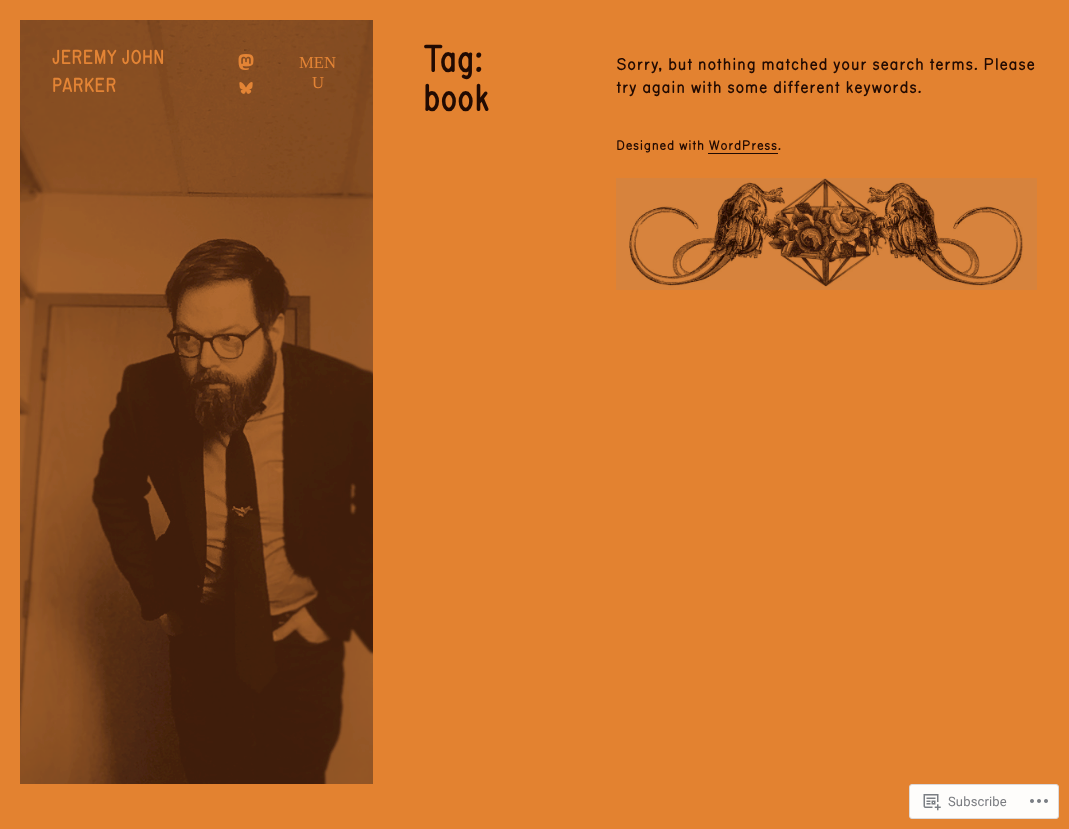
async function draw(canvas) {
  canvas.width = 1069
  canvas.height = 829
  const ctx = canvas.getContext('2d')
  ctx.miterLimit = 4
  ctx.fontKerning = 'normal'
  async function loadImage(src) {
    const img = new Image()
    img.src = src
    await img.decode()
    return img
  }

  ctx.fillStyle = '#e38230'
  ctx.fillRect(0, 0, 1069, 829)
  ctx.drawImage(await loadImage('image0.png'), 20, 20, 353, 764)
  ctx.letterSpacing = '0.25px'
  ctx.font = '19.75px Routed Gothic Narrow'
  ctx.fillStyle = '#e38435'
  ctx.fillText('JEREMY JOHN', 52, 64)
  ctx.fillText('PARKER', 52, 92)
  ctx.drawImage(await loadImage('image1.png'), 238, 54, 16, 16)
  ctx.drawImage(await loadImage('image2.png'), 239, 82, 14, 12)
  ctx.letterSpacing = '0px'
  ctx.font = '16.7px Liberation Serif'
  ctx.fillText('MEN', 299, 68)
  ctx.fillText('U', 312, 88)
  ctx.font = '38px Routed Gothic Narrow'
  ctx.fillStyle = '#210a02'
  ctx.fillText('Tag:', 423, 72)
  ctx.fillText('book', 423, 111)
  ctx.letterSpacing = '0.15px'
  ctx.font = '16.7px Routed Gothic'
  ctx.fillText('Sorry, but nothing matched your search terms. Please', 616, 70)
  ctx.fillText('try again with some different keywords.', 616, 93)
  ctx.font = '13.6px Routed Gothic'
  ctx.fillText('Designed with WordPress.', 616, 150)
  ctx.fillRect(708, 153, 70, 1)
  ctx.drawImage(await loadImage('image3.png'), 616, 178, 421, 112)
  ctx.fillStyle = '#fefdfb'
  ctx.beginPath()
  ctx.roundRect(909.5, 784.5, 149, 34, 2.5)
  ctx.fill()
  ctx.strokeStyle = '#dcdadb'
  ctx.stroke()
  ctx.drawImage(await loadImage('image4.png'), 923, 794, 18, 17)
  ctx.font = '13px Roboto'
  ctx.fillStyle = '#7a7c80'
  ctx.fillText('Subscribe', 948, 806)
  ctx.drawImage(await loadImage('image5.png'), 1030, 799, 18, 4)
}

draw(document.querySelector('canvas'))
